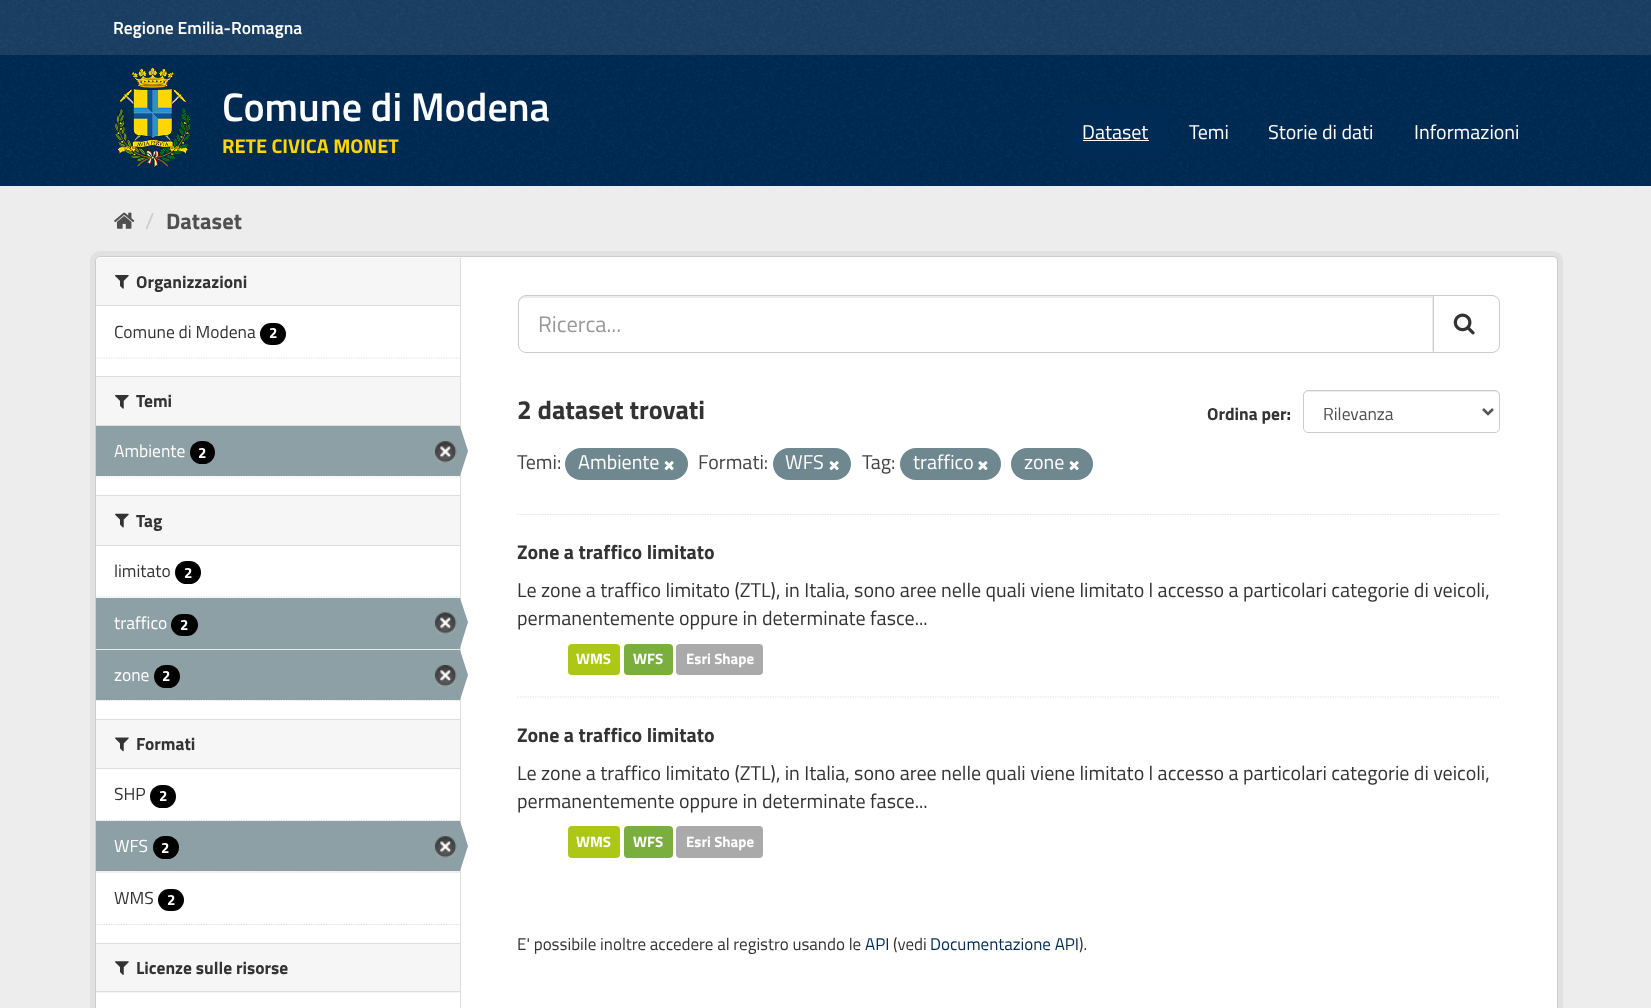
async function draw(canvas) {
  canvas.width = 1651
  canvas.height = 1008
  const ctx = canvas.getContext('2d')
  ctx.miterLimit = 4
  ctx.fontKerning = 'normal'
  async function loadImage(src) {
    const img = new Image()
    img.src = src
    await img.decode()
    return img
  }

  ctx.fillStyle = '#1a3f64'
  ctx.fillRect(0, 0, 1651, 1008)
  ctx.drawImage(await loadImage('image0.png'), 0, 0, 1651, 55)
  ctx.font = '600 17.5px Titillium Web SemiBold'
  ctx.fillStyle = '#fff'
  ctx.fillText('Regione Emilia-Romagna', 113, 34)
  ctx.fillStyle = '#002b54'
  ctx.fillRect(0, 55, 1651, 131)
  ctx.drawImage(await loadImage('image1.png'), 0, 55, 1651, 131)
  ctx.drawImage(await loadImage('image2.png'), 115, 67, 76, 101)
  ctx.font = '600 40px Titillium Web SemiBold'
  ctx.fillStyle = '#fff'
  ctx.fillText('Comune di Modena', 222, 121)
  ctx.font = 'bold 20px Titillium Web'
  ctx.fillStyle = '#fed505'
  ctx.fillText('RETE CIVICA MONET', 222, 153)
  ctx.fillStyle = '#002b54'
  ctx.beginPath()
  ctx.roundRect(1064, 105, 104, 54, 5)
  ctx.fill()
  ctx.font = '20px Titillium Web'
  ctx.fillStyle = '#fff'
  ctx.fillText('Dataset', 1082, 139)
  ctx.fillRect(1083, 140, 66, 1)
  ctx.fillText('Temi', 1189, 139)
  ctx.fillText('Storie di dati', 1268, 139)
  ctx.fillText('Informazioni', 1414, 139)
  ctx.fillStyle = '#ededed'
  ctx.fillRect(0, 186, 1651, 822)
  ctx.drawImage(await loadImage('image3.png'), 114, 212, 21, 17)
  ctx.font = '22.5px Titillium Web'
  ctx.fillStyle = '#ccc'
  ctx.fillText('/', 145, 229)
  ctx.font = 'bold 22.5px Titillium Web'
  ctx.fillStyle = '#505050'
  ctx.fillText('Dataset', 166, 229)
  ctx.beginPath()
  ctx.roundRect(92.5, 253.5, 1468, 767, 7.5)
  ctx.strokeStyle = '#e1e1e1'
  ctx.lineWidth = 5
  ctx.stroke()
  ctx.fillStyle = '#fff'
  ctx.beginPath()
  ctx.roundRect(95.5, 256.5, 1462, 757, 4.5)
  ctx.fill()
  ctx.strokeStyle = '#ccc'
  ctx.lineWidth = 1
  ctx.stroke()
  ctx.fillStyle = '#f6f6f6'
  ctx.beginPath()
  ctx.roundRect(96, 258, 364, 48, [4, 0, 0, 0])
  ctx.fill()
  ctx.fillStyle = '#ddd'
  ctx.fillRect(96, 305, 364, 1)
  ctx.drawImage(await loadImage('image4.png'), 115, 275, 14, 14)
  ctx.font = 'bold 17.5px Titillium Web'
  ctx.fillStyle = '#333'
  ctx.fillText('Organizzazioni', 136, 288)
  ctx.font = '17.5px Titillium Web'
  ctx.fillText('Comune di Modena', 114, 338)
  ctx.fillStyle = '#000'
  ctx.beginPath()
  ctx.roundRect(260, 323, 26, 22, 11)
  ctx.fill()
  ctx.font = 'bold 15px Titillium Web'
  ctx.fillStyle = '#fff'
  ctx.fillText('2', 269, 338)
  ctx.beginPath()
  ctx.moveTo(96, 358)
  ctx.lineTo(460, 358)
  ctx.strokeStyle = '#ddd'
  ctx.lineWidth = 1.2
  ctx.setLineDash([1.25, 1.25])
  ctx.stroke()
  ctx.fillStyle = '#f6f6f6'
  ctx.fillRect(96, 377, 364, 48)
  ctx.fillStyle = '#ddd'
  ctx.fillRect(96, 376, 364, 1)
  ctx.fillRect(96, 425, 364, 1)
  ctx.drawImage(await loadImage('image4.png'), 115, 395, 14, 14)
  ctx.font = 'bold 17.5px Titillium Web'
  ctx.fillStyle = '#333'
  ctx.fillText('Temi', 136, 407)
  ctx.fillStyle = '#8ca0a6'
  ctx.fillRect(96, 426, 364, 50)
  ctx.font = '17.5px Titillium Web'
  ctx.fillStyle = '#fff'
  ctx.fillText('Ambiente', 114, 457)
  ctx.fillStyle = '#000'
  ctx.beginPath()
  ctx.roundRect(190, 441, 25, 23, 11.5)
  ctx.fill()
  ctx.font = 'bold 15px Titillium Web'
  ctx.fillStyle = '#fff'
  ctx.fillText('2', 198, 458)
  ctx.drawImage(await loadImage('image5.png'), 435, 441, 22, 22)
  ctx.fillStyle = '#ddd'
  ctx.fillRect(460, 258, 1, 750)
  ctx.fillStyle = '#8ca0a6'
  ctx.beginPath()
  ctx.moveTo(460, 476)
  ctx.lineTo(460, 426)
  ctx.lineTo(468, 451)
  ctx.closePath()
  ctx.fill()
  ctx.beginPath()
  ctx.moveTo(96, 477)
  ctx.lineTo(460, 477)
  ctx.stroke()
  ctx.fillStyle = '#f6f6f6'
  ctx.fillRect(96, 496, 364, 49)
  ctx.fillStyle = '#ddd'
  ctx.fillRect(96, 495, 364, 1)
  ctx.fillRect(96, 545, 364, 1)
  ctx.drawImage(await loadImage('image6.png'), 115, 513, 14, 15)
  ctx.font = 'bold 17.5px Titillium Web'
  ctx.fillStyle = '#333'
  ctx.fillText('Tag', 136, 527)
  ctx.beginPath()
  ctx.moveTo(96, 597)
  ctx.lineTo(460, 597)
  ctx.stroke()
  ctx.font = '17.5px Titillium Web'
  ctx.fillText('limitato', 114, 577)
  ctx.fillStyle = '#000'
  ctx.beginPath()
  ctx.roundRect(175, 561, 26, 23, 11.5)
  ctx.fill()
  ctx.font = 'bold 15px Titillium Web'
  ctx.fillStyle = '#fff'
  ctx.fillText('2', 184, 578)
  ctx.fillStyle = '#f6f6f6'
  ctx.fillRect(97, 649, 363, 1)
  ctx.beginPath()
  ctx.moveTo(96, 649.5)
  ctx.lineTo(460, 649.5)
  ctx.stroke()
  ctx.fillStyle = '#8ca0a6'
  ctx.fillRect(96, 598, 364, 51)
  ctx.font = '17.5px Titillium Web'
  ctx.fillStyle = '#fff'
  ctx.fillText('traffico', 114, 629)
  ctx.fillStyle = '#000'
  ctx.beginPath()
  ctx.roundRect(171, 614, 27, 22, 11)
  ctx.fill()
  ctx.font = 'bold 15px Titillium Web'
  ctx.fillStyle = '#fff'
  ctx.fillText('2', 180, 630)
  ctx.drawImage(await loadImage('image7.png'), 435, 612, 22, 22)
  ctx.fillStyle = '#8ca0a6'
  ctx.beginPath()
  ctx.moveTo(460, 648)
  ctx.lineTo(460, 598)
  ctx.lineTo(468, 622)
  ctx.closePath()
  ctx.fill()
  ctx.beginPath()
  ctx.moveTo(96, 700.5)
  ctx.lineTo(460, 700.5)
  ctx.stroke()
  ctx.fillRect(96, 650, 364, 50)
  ctx.font = '17.5px Titillium Web'
  ctx.fillStyle = '#fff'
  ctx.fillText('zone', 114, 681)
  ctx.fillStyle = '#000'
  ctx.beginPath()
  ctx.roundRect(154, 665, 26, 23, 11.5)
  ctx.fill()
  ctx.font = 'bold 15px Titillium Web'
  ctx.fillStyle = '#fff'
  ctx.fillText('2', 162, 681)
  ctx.drawImage(await loadImage('image8.png'), 435, 665, 22, 22)
  ctx.fillStyle = '#8ca0a6'
  ctx.beginPath()
  ctx.moveTo(460, 700)
  ctx.lineTo(460, 650)
  ctx.lineTo(468, 675)
  ctx.closePath()
  ctx.fill()
  ctx.fillStyle = '#f6f6f6'
  ctx.fillRect(96, 720, 364, 48)
  ctx.fillStyle = '#ddd'
  ctx.fillRect(96, 719, 364, 1)
  ctx.fillRect(96, 768, 364, 1)
  ctx.drawImage(await loadImage('image9.png'), 115, 737, 14, 15)
  ctx.font = 'bold 17.5px Titillium Web'
  ctx.fillStyle = '#333'
  ctx.fillText('Formati', 136, 750)
  ctx.beginPath()
  ctx.moveTo(96, 820.5)
  ctx.lineTo(460, 820.5)
  ctx.stroke()
  ctx.font = '17.5px Titillium Web'
  ctx.fillText('SHP', 114, 800)
  ctx.fillStyle = '#000'
  ctx.beginPath()
  ctx.roundRect(150, 785, 26, 23, 11.5)
  ctx.fill()
  ctx.font = 'bold 15px Titillium Web'
  ctx.fillStyle = '#fff'
  ctx.fillText('2', 159, 801)
  ctx.fillStyle = '#f6f6f6'
  ctx.fillRect(96, 871, 364, 2)
  ctx.beginPath()
  ctx.moveTo(96, 872)
  ctx.lineTo(460, 872)
  ctx.stroke()
  ctx.fillStyle = '#8ca0a6'
  ctx.fillRect(96, 821, 364, 50)
  ctx.font = '17.5px Titillium Web'
  ctx.fillStyle = '#fff'
  ctx.fillText('WFS', 114, 852)
  ctx.fillStyle = '#000'
  ctx.beginPath()
  ctx.roundRect(153, 836, 26, 23, 11.5)
  ctx.fill()
  ctx.font = 'bold 15px Titillium Web'
  ctx.fillStyle = '#fff'
  ctx.fillText('2', 161, 853)
  ctx.drawImage(await loadImage('image5.png'), 435, 836, 22, 22)
  ctx.fillStyle = '#8ca0a6'
  ctx.beginPath()
  ctx.moveTo(460, 871)
  ctx.lineTo(460, 821)
  ctx.lineTo(468, 846)
  ctx.closePath()
  ctx.fill()
  ctx.font = '17.5px Titillium Web'
  ctx.fillStyle = '#333'
  ctx.fillText('WMS', 114, 904)
  ctx.fillStyle = '#000'
  ctx.beginPath()
  ctx.roundRect(158, 889, 26, 22, 11)
  ctx.fill()
  ctx.font = 'bold 15px Titillium Web'
  ctx.fillStyle = '#fff'
  ctx.fillText('2', 167, 905)
  ctx.beginPath()
  ctx.moveTo(96, 924.5)
  ctx.lineTo(460, 924.5)
  ctx.stroke()
  ctx.fillStyle = '#f6f6f6'
  ctx.fillRect(96, 944, 364, 49)
  ctx.fillStyle = '#ddd'
  ctx.fillRect(96, 943, 364, 1)
  ctx.fillRect(96, 991, 364, 1)
  ctx.drawImage(await loadImage('image10.png'), 115, 961, 14, 14)
  ctx.font = 'bold 17.5px Titillium Web'
  ctx.fillStyle = '#333'
  ctx.fillText('Licenze sulle risorse', 136, 974)
  ctx.beginPath()
  ctx.moveTo(517.5, 514.5)
  ctx.lineTo(1500, 514.5)
  ctx.stroke()
  ctx.fillStyle = '#ececec'
  ctx.beginPath()
  ctx.moveTo(525, 298)
  ctx.lineTo(1432, 298)
  ctx.lineTo(1432, 351)
  ctx.lineTo(1433, 351)
  ctx.lineTo(1433, 296)
  ctx.lineTo(525, 296)
  ctx.bezierCurveTo(520, 296, 519, 300, 519, 304)
  ctx.bezierCurveTo(519, 300, 522, 298, 525, 298)
  ctx.closePath()
  ctx.fill()
  ctx.beginPath()
  ctx.roundRect(518.5, 295.5, 915, 57, [7.5, 0, 0, 7.5])
  ctx.strokeStyle = '#ccc'
  ctx.lineWidth = 1
  ctx.setLineDash([])
  ctx.stroke()
  ctx.font = '22.5px Titillium Web'
  ctx.fillStyle = '#999'
  ctx.fillText('Ricerca...', 538, 332)
  ctx.fillStyle = '#fff'
  ctx.beginPath()
  ctx.roundRect(1433.5, 295.5, 66, 57, [0, 7.5, 7.5, 0])
  ctx.fill()
  ctx.stroke()
  ctx.drawImage(await loadImage('image11.png'), 1453, 313, 22, 22)
  ctx.font = 'bold 26.25px Titillium Web'
  ctx.fillStyle = '#333'
  ctx.fillText('2 dataset trovati', 517, 419)
  ctx.font = 'bold 17.5px Titillium Web'
  ctx.fillText('Ordina per:', 1207, 420)
  ctx.fillStyle = '#ececec'
  ctx.beginPath()
  ctx.moveTo(1308, 392)
  ctx.lineTo(1495, 392)
  ctx.bezierCurveTo(1497, 392, 1499, 394, 1499, 396)
  ctx.lineTo(1499, 395)
  ctx.bezierCurveTo(1499, 393, 1497, 391, 1495, 391)
  ctx.lineTo(1308, 391)
  ctx.bezierCurveTo(1306, 391, 1304, 393, 1304, 395)
  ctx.lineTo(1304, 396)
  ctx.bezierCurveTo(1304, 394, 1305, 392, 1308, 392)
  ctx.closePath()
  ctx.fill()
  ctx.beginPath()
  ctx.roundRect(1303.5, 390.5, 196, 42, 4.5)
  ctx.stroke()
  ctx.beginPath()
  ctx.moveTo(1483, 409)
  ctx.lineTo(1488, 414)
  ctx.lineTo(1493, 409)
  ctx.strokeStyle = '#555'
  ctx.lineWidth = 2.5
  ctx.stroke()
  ctx.font = '17.5px Titillium Web'
  ctx.fillStyle = '#505050'
  ctx.fillText('Rilevanza', 1323, 420)
  ctx.font = '20px Titillium Web'
  ctx.fillStyle = '#444'
  ctx.fillText('Temi:', 517, 469)
  ctx.fillStyle = '#6f8890'
  ctx.beginPath()
  ctx.roundRect(565, 448, 123, 32, 16)
  ctx.fill()
  ctx.fillStyle = '#fff'
  ctx.fillText('Ambiente', 578, 469)
  ctx.drawImage(await loadImage('image12.png'), 664, 461, 10, 10)
  ctx.fillStyle = '#444'
  ctx.fillText('Formati:', 698, 469)
  ctx.fillStyle = '#6f8890'
  ctx.beginPath()
  ctx.roundRect(773, 448, 78, 32, 16)
  ctx.fill()
  ctx.fillStyle = '#fff'
  ctx.fillText('WFS', 785, 469)
  ctx.drawImage(await loadImage('image12.png'), 829, 461, 10, 10)
  ctx.fillStyle = '#444'
  ctx.fillText('Tag:', 862, 469)
  ctx.fillStyle = '#6f8890'
  ctx.beginPath()
  ctx.roundRect(900, 448, 101, 32, 16)
  ctx.fill()
  ctx.fillStyle = '#fff'
  ctx.fillText('traffico', 913, 469)
  ctx.drawImage(await loadImage('image13.png'), 978, 461, 10, 10)
  ctx.fillStyle = '#6f8890'
  ctx.beginPath()
  ctx.roundRect(1011, 448, 82, 32, 16)
  ctx.fill()
  ctx.fillStyle = '#fff'
  ctx.fillText('zone', 1024, 469)
  ctx.drawImage(await loadImage('image12.png'), 1069, 461, 10, 10)
  ctx.beginPath()
  ctx.moveTo(517.5, 697)
  ctx.lineTo(1500, 697)
  ctx.strokeStyle = '#ddd'
  ctx.lineWidth = 1.2
  ctx.setLineDash([1.25, 1.25])
  ctx.stroke()
  ctx.font = 'bold 20px Titillium Web'
  ctx.fillStyle = '#333'
  ctx.fillText('Zone a traffico limitato', 517, 559)
  ctx.font = '20px Titillium Web'
  ctx.fillText('Le zone a traffico limitato (ZTL), in Italia, sono aree nelle quali viene limitato l accesso a particolari categorie di veicoli,', 517, 597)
  ctx.fillText('permanentemente oppure in determinate fasce...', 517, 625)
  ctx.fillStyle = '#adc717'
  ctx.beginPath()
  ctx.roundRect(568, 644, 52, 31, 4)
  ctx.fill()
  ctx.font = 'bold 15px Titillium Web'
  ctx.fillStyle = '#fff'
  ctx.fillText('WMS', 576, 664)
  ctx.fillStyle = '#7aae3d'
  ctx.beginPath()
  ctx.roundRect(624, 644, 49, 31, 4)
  ctx.fill()
  ctx.fillStyle = '#fff'
  ctx.fillText('WFS', 633, 664)
  ctx.fillStyle = '#aaa'
  ctx.beginPath()
  ctx.roundRect(676, 644, 87, 31, 4)
  ctx.fill()
  ctx.fillStyle = '#fff'
  ctx.fillText('Esri Shape', 686, 664)
  ctx.font = 'bold 20px Titillium Web'
  ctx.fillStyle = '#333'
  ctx.fillText('Zone a traffico limitato', 517, 742)
  ctx.font = '20px Titillium Web'
  ctx.fillText('Le zone a traffico limitato (ZTL), in Italia, sono aree nelle quali viene limitato l accesso a particolari categorie di veicoli,', 517, 780)
  ctx.fillText('permanentemente oppure in determinate fasce...', 517, 808)
  ctx.fillStyle = '#adc717'
  ctx.beginPath()
  ctx.roundRect(568, 826, 52, 32, 4)
  ctx.fill()
  ctx.font = 'bold 15px Titillium Web'
  ctx.fillStyle = '#fff'
  ctx.fillText('WMS', 576, 847)
  ctx.fillStyle = '#7aae3d'
  ctx.beginPath()
  ctx.roundRect(624, 826, 49, 32, 4)
  ctx.fill()
  ctx.fillStyle = '#fff'
  ctx.fillText('WFS', 633, 847)
  ctx.fillStyle = '#aaa'
  ctx.beginPath()
  ctx.roundRect(676, 826, 87, 32, 4)
  ctx.fill()
  ctx.fillStyle = '#fff'
  ctx.fillText('Esri Shape', 686, 847)
  ctx.font = '17px Titillium Web'
  ctx.fillStyle = '#333'
  ctx.fillText('E\' possibile inoltre accedere al registro usando le', 517, 950)
  ctx.fillStyle = '#002b54'
  ctx.fillText('API', 865, 950)
  ctx.fillStyle = '#333'
  ctx.fillText('(vedi', 893, 950)
  ctx.fillStyle = '#002b54'
  ctx.fillText('Documentazione API', 930, 950)
  ctx.fillStyle = '#333'
  ctx.fillText(').', 1079, 950)
}

draw(document.querySelector('canvas'))
